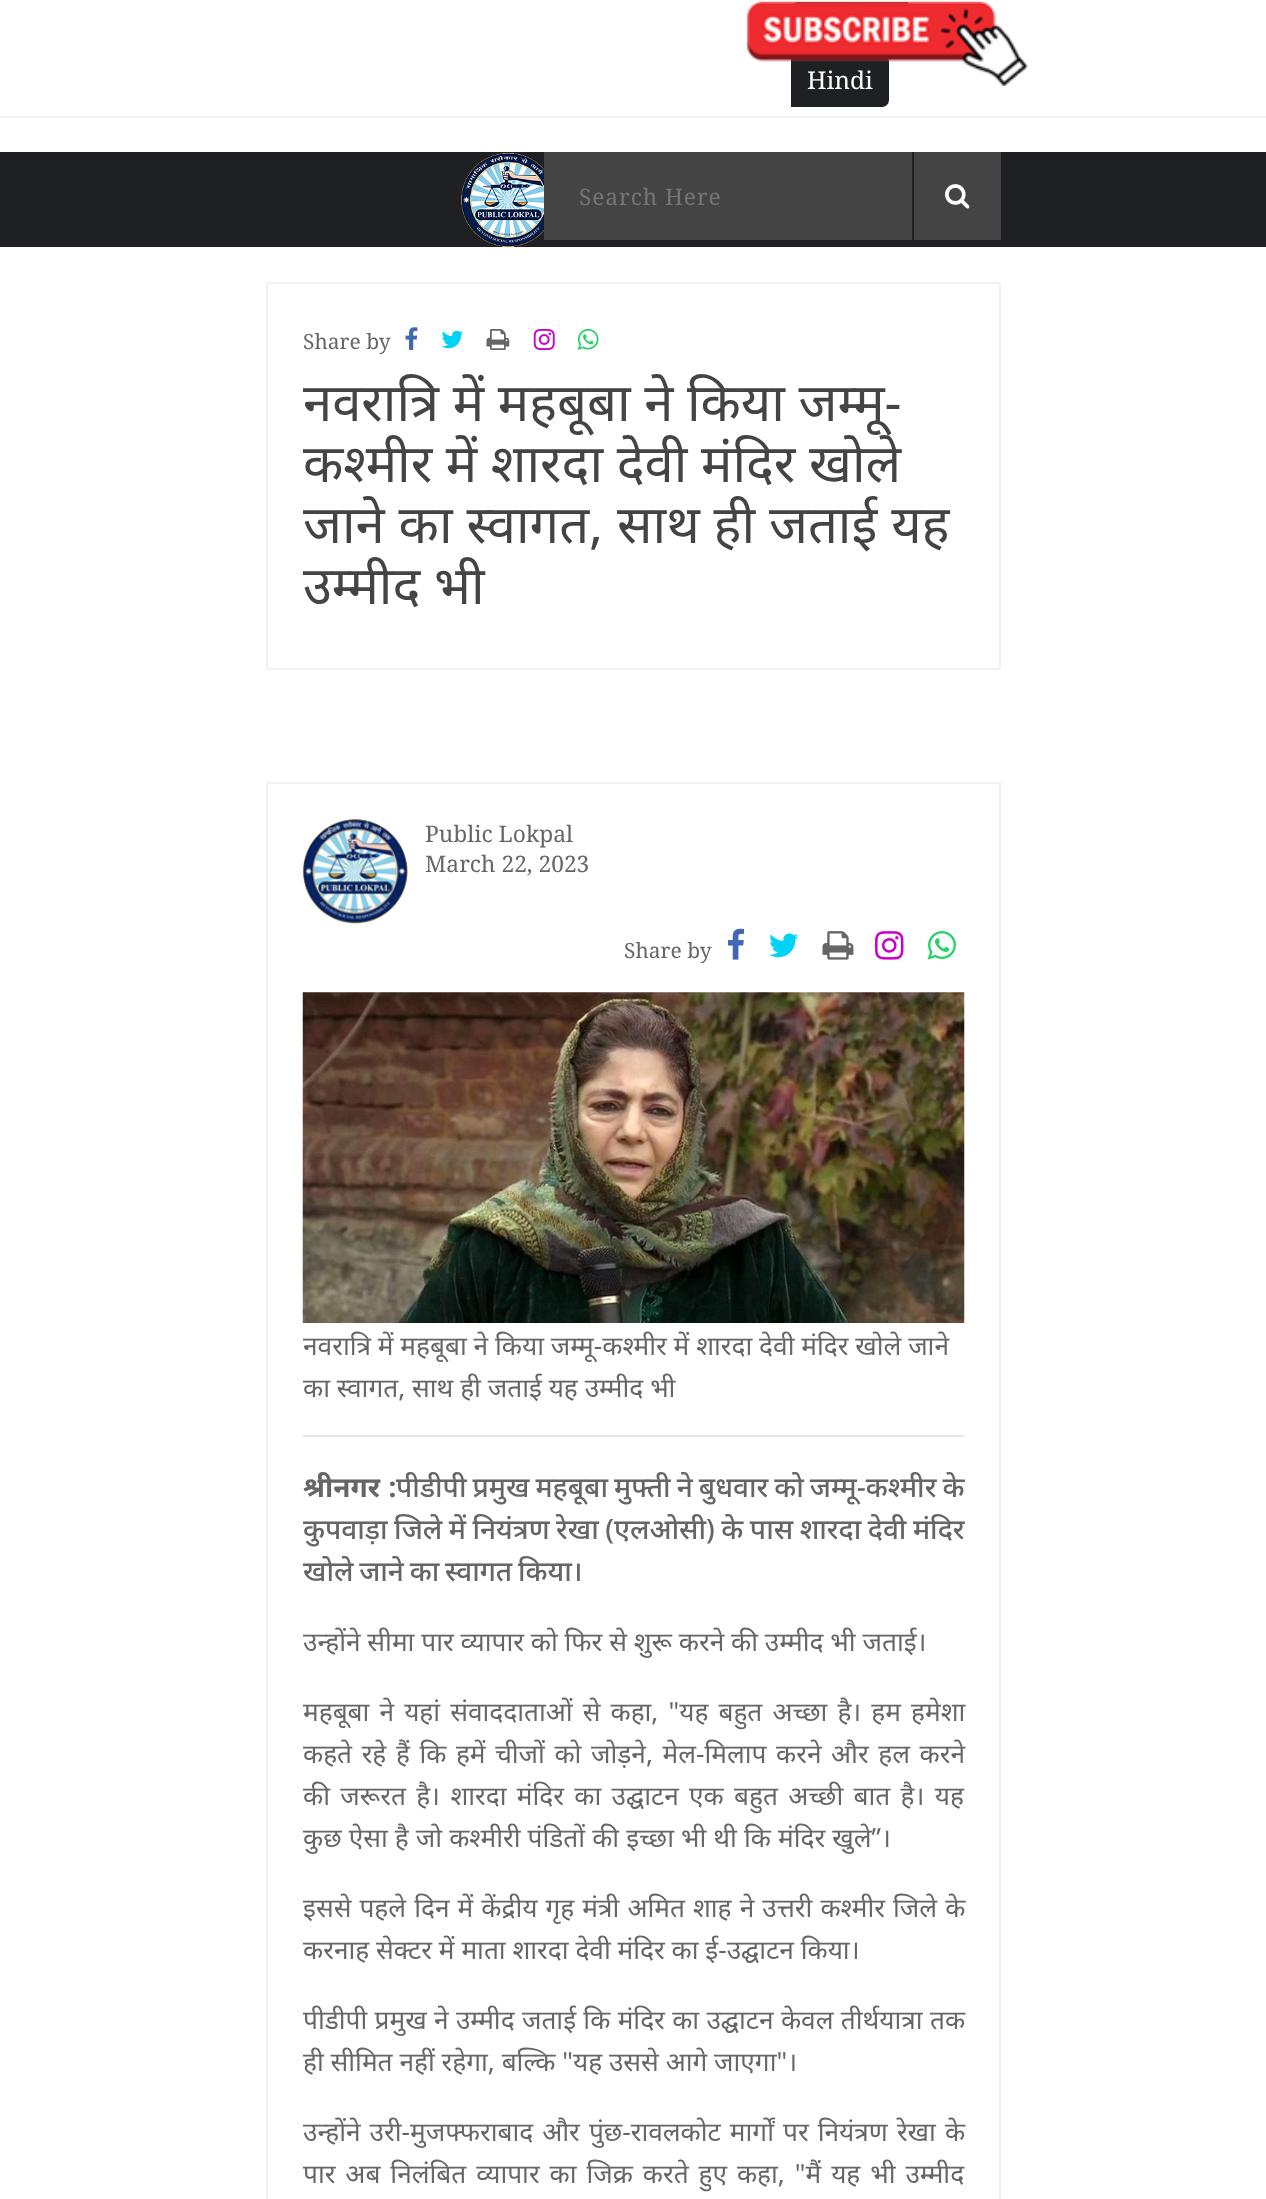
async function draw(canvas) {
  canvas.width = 1266
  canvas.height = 2199
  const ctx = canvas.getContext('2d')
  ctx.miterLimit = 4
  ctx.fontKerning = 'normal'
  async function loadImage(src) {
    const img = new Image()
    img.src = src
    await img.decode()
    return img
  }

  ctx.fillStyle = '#fff'
  ctx.fillRect(0, 0, 1266, 2199)
  ctx.fillStyle = '#f1f1f1'
  ctx.fillRect(0, 116, 1266, 2)
  ctx.beginPath()
  ctx.roundRect(792, 3, 115, 50, [6, 0, 0, 6])
  ctx.strokeStyle = '#1f2024'
  ctx.lineWidth = 2
  ctx.stroke()
  ctx.fillStyle = '#1f2024'
  ctx.beginPath()
  ctx.roundRect(792, 55, 96, 51, [0, 6, 6, 0])
  ctx.fill()
  ctx.stroke()
  ctx.font = '24.5px Noto Serif'
  ctx.fillStyle = '#fff'
  ctx.fillText('Hindi', 807, 89)
  ctx.drawImage(await loadImage('image0.png'), 747, 1, 281, 85)
  ctx.fillStyle = '#1f2024'
  ctx.fillRect(0, 152, 1266, 95)
  ctx.drawImage(await loadImage('image1.png'), 461, 153, 83, 94)
  ctx.fillStyle = '#444'
  ctx.fillRect(544, 152, 368, 88)
  ctx.letterSpacing = '0.9px'
  ctx.font = '22.75px Noto Serif'
  ctx.fillStyle = '#757575'
  ctx.fillText('Search Here', 579, 205)
  ctx.fillStyle = '#444'
  ctx.fillRect(914, 152, 87, 88)
  ctx.drawImage(await loadImage('image2.png'), 945, 184, 25, 25)
  ctx.strokeStyle = '#f1f1f1'
  ctx.strokeRect(267, 283, 733, 386)
  ctx.letterSpacing = '0px'
  ctx.font = '21px Noto Serif'
  ctx.fillStyle = '#666'
  ctx.fillText('Share by', 303, 349)
  ctx.drawImage(await loadImage('image3.png'), 405, 327, 13, 23)
  ctx.drawImage(await loadImage('image4.png'), 441, 330, 22, 19)
  ctx.drawImage(await loadImage('image5.png'), 486, 329, 24, 21)
  ctx.drawImage(await loadImage('image6.png'), 533, 329, 22, 21)
  ctx.drawImage(await loadImage('image7.png'), 577, 328, 22, 22)
  ctx.font = '52.5px Noto Sans'
  ctx.fillStyle = '#444'
  ctx.fillText('नवरात्रि में महबूबा ने किया जम्मू-', 303, 421)
  ctx.fillText('कश्मीर में शारदा देवी मंदिर खोले', 303, 482)
  ctx.wordSpacing = '0.25px'
  ctx.fillText('जाने का स्वागत, साथ ही जताई यह', 303, 543)
  ctx.wordSpacing = '0px'
  ctx.fillText('उम्मीद भी', 303, 604)
  ctx.strokeRect(267, 783, 733, 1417)
  ctx.drawImage(await loadImage('image8.png'), 302, 819, 106, 105)
  ctx.font = '22.75px Noto Serif'
  ctx.fillStyle = '#666'
  ctx.fillText('Public Lokpal', 425, 842)
  ctx.fillText('March 22, 2023', 425, 872)
  ctx.font = '21px Noto Serif'
  ctx.fillText('Share by', 624, 958)
  ctx.drawImage(await loadImage('image9.png'), 728, 928, 17, 32)
  ctx.drawImage(await loadImage('image10.png'), 769, 933, 30, 25)
  ctx.drawImage(await loadImage('image11.png'), 822, 931, 32, 29)
  ctx.drawImage(await loadImage('image12.png'), 875, 931, 29, 29)
  ctx.drawImage(await loadImage('image13.png'), 927, 931, 29, 29)
  ctx.drawImage(await loadImage('image14.png'), 302, 992, 663, 331)
  ctx.font = '26.25px Noto Sans'
  ctx.fillText('नवरात्रि में महबूबा ने किया जम्मू-कश्मीर में शारदा देवी मंदिर खोले जाने', 303, 1355)
  ctx.fillText('का स्वागत, साथ ही जताई यह उम्मीद भी', 303, 1397)
  ctx.fillStyle = '#e6e6e6'
  ctx.fillRect(303, 1435, 661, 2)
  ctx.wordSpacing = '1px'
  ctx.font = 'bold 28px Noto Sans'
  ctx.fillStyle = '#666'
  ctx.fillText('श्रीनगर :', 303, 1497)
  ctx.wordSpacing = '-1.25px'
  ctx.font = '500 28px Noto Sans'
  ctx.fillText('पीडीपी प्रमुख महबूबा मुफ्ती ने बुधवार को जम्मू-कश्मीर के', 396, 1497)
  ctx.wordSpacing = '-0.75px'
  ctx.fillText('कुपवाड़ा जिले में नियंत्रण रेखा (एलओसी) के पास शारदा देवी मंदिर', 303, 1539)
  ctx.wordSpacing = '-1.5px'
  ctx.fillText('खोले जाने का स्वागत किया।', 303, 1581)
  ctx.wordSpacing = '0px'
  ctx.font = '26.25px Noto Sans'
  ctx.fillText('उन्होंने सीमा पार व्यापार को फिर से शुरू करने की उम्मीद भी जताई।', 303, 1651)
  ctx.wordSpacing = '3.25px'
  ctx.fillText('महबूबा ने यहां संवाददाताओं से कहा, "यह बहुत अच्छा है। हम हमेशा', 303, 1721)
  ctx.wordSpacing = '2.75px'
  ctx.fillText('कहते रहे हैं कि हमें चीजों को जोड़ने, मेल-मिलाप करने और हल करने', 303, 1763)
  ctx.wordSpacing = '3.5px'
  ctx.fillText('की जरूरत है। शारदा मंदिर का उद्घाटन एक बहुत अच्छी बात है। यह', 303, 1805)
  ctx.wordSpacing = '0.25px'
  ctx.fillText('कुछ ऐसा है जो कश्मीरी पंडितों की इच्छा भी थी कि मंदिर खुले”।', 303, 1847)
  ctx.wordSpacing = '1.25px'
  ctx.fillText('इससे पहले दिन में केंद्रीय गृह मंत्री अमित शाह ने उत्तरी कश्मीर जिले के', 303, 1917)
  ctx.wordSpacing = '0px'
  ctx.fillText('करनाह सेक्टर में माता शारदा देवी मंदिर का ई-उद्घाटन किया।', 303, 1959)
  ctx.wordSpacing = '0.5px'
  ctx.fillText('पीडीपी प्रमुख ने उम्मीद जताई कि मंदिर का उद्घाटन केवल तीर्थयात्रा तक', 303, 2029)
  ctx.wordSpacing = '0px'
  ctx.fillText('ही सीमित नहीं रहेगा, बल्कि "यह उससे आगे जाएगा"।', 303, 2071)
  ctx.wordSpacing = '2.25px'
  ctx.fillText('उन्होंने उरी-मुजफ्फराबाद और पुंछ-रावलकोट मार्गों पर नियंत्रण रेखा के', 303, 2141)
  ctx.wordSpacing = '3.1px'
  ctx.fillText('पार अब निलंबित व्यापार का जिक्र करते हुए कहा, "मैं यह भी उम्मीद', 303, 2183)
}

draw(document.querySelector('canvas'))
